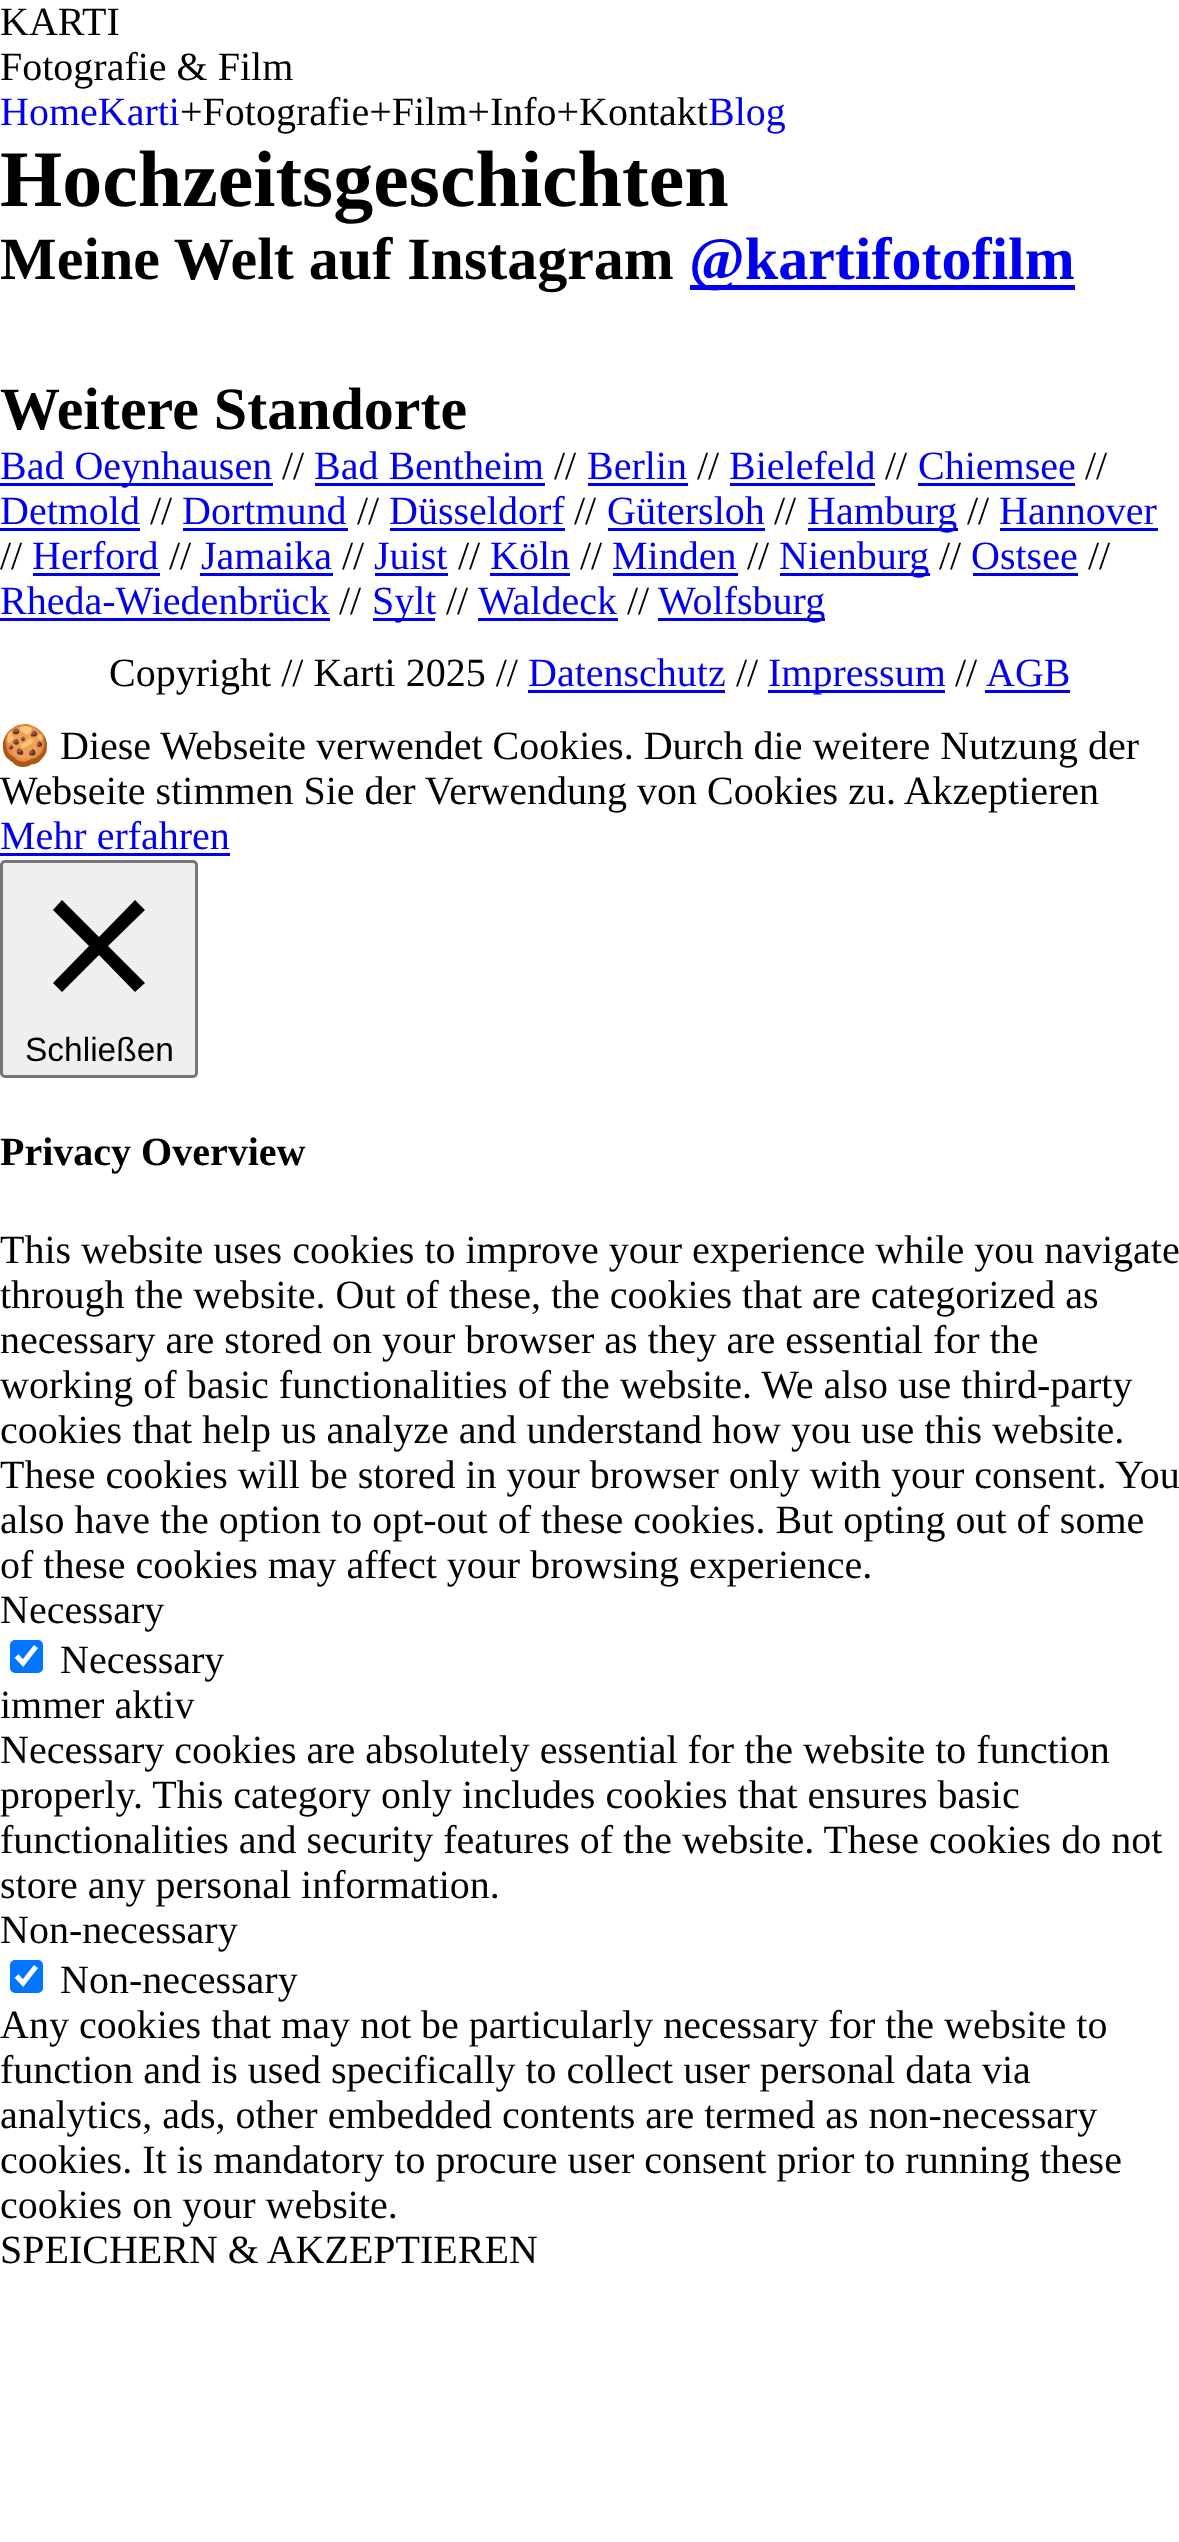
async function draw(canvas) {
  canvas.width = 1179
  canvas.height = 2542
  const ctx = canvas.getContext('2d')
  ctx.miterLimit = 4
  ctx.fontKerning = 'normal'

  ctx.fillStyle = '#fff'
  ctx.fillRect(0, 0, 1179, 2542)
  ctx.font = '40px Liberation Serif'
  ctx.fillStyle = '#000'
  ctx.fillText('KARTI', 0, 35)
  ctx.fillText('Fotografie & Film', 0, 80)
  ctx.fillStyle = '#00e'
  ctx.fillText('HomeKarti', 0, 125)
  ctx.fillStyle = '#000'
  ctx.fillText('+Fotografie+Film+Info+Kontakt', 180, 125)
  ctx.fillStyle = '#00e'
  ctx.fillText('Blog', 708, 125)
  ctx.font = 'bold 80px Liberation Serif'
  ctx.fillStyle = '#000'
  ctx.fillText('Hochzeitsgeschichten', 0, 206)
  ctx.font = 'bold 60px Liberation Serif'
  ctx.fillText('Meine Welt auf Instagram', 0, 279)
  ctx.fillStyle = '#00e'
  ctx.fillRect(690, 285, 385, 5)
  ctx.fillText('@kartifotofilm', 689, 279)
  ctx.fillStyle = '#000'
  ctx.fillText('Weitere Standorte', 0, 429)
  ctx.fillStyle = '#00e'
  ctx.fillRect(0, 483, 273, 3)
  ctx.font = '40px Liberation Serif'
  ctx.fillText('Bad Oeynhausen', 0, 479)
  ctx.fillStyle = '#000'
  ctx.fillText('//', 282, 479)
  ctx.fillStyle = '#00e'
  ctx.fillText('Bad Bentheim', 314, 479)
  ctx.fillRect(315, 483, 230, 3)
  ctx.fillStyle = '#000'
  ctx.fillText('//', 554, 479)
  ctx.fillStyle = '#00e'
  ctx.fillText('Berlin', 587, 479)
  ctx.fillRect(588, 483, 100, 3)
  ctx.fillStyle = '#000'
  ctx.fillText('//', 697, 479)
  ctx.fillStyle = '#00e'
  ctx.fillText('Bielefeld', 729, 479)
  ctx.fillRect(730, 483, 145, 3)
  ctx.fillStyle = '#000'
  ctx.fillText('//', 885, 479)
  ctx.fillStyle = '#00e'
  ctx.fillText('Chiemsee', 918, 479)
  ctx.fillRect(918, 483, 157, 3)
  ctx.fillStyle = '#000'
  ctx.fillText('//', 1085, 479)
  ctx.fillStyle = '#00e'
  ctx.fillText('Detmold', 0, 524)
  ctx.fillRect(0, 528, 140, 3)
  ctx.fillStyle = '#000'
  ctx.fillText('//', 150, 524)
  ctx.fillStyle = '#00e'
  ctx.fillText('Dortmund', 182, 524)
  ctx.fillRect(183, 528, 165, 3)
  ctx.fillStyle = '#000'
  ctx.fillText('//', 357, 524)
  ctx.fillStyle = '#00e'
  ctx.fillText('Düsseldorf', 389, 524)
  ctx.fillRect(390, 528, 175, 3)
  ctx.fillStyle = '#000'
  ctx.fillText('//', 574, 524)
  ctx.fillStyle = '#00e'
  ctx.fillText('Gütersloh', 607, 524)
  ctx.fillRect(608, 528, 157, 3)
  ctx.fillStyle = '#000'
  ctx.fillText('//', 774, 524)
  ctx.fillStyle = '#00e'
  ctx.fillRect(808, 528, 150, 3)
  ctx.fillText('Hamburg', 807, 524)
  ctx.fillStyle = '#000'
  ctx.fillText('//', 967, 524)
  ctx.fillStyle = '#00e'
  ctx.fillText('Hannover', 999, 524)
  ctx.fillRect(1000, 528, 158, 3)
  ctx.fillStyle = '#000'
  ctx.fillText('//', 0, 569)
  ctx.fillStyle = '#00e'
  ctx.fillText('Herford', 32, 569)
  ctx.fillRect(33, 573, 127, 3)
  ctx.fillStyle = '#000'
  ctx.fillText('//', 169, 569)
  ctx.fillStyle = '#00e'
  ctx.fillText('Jamaika', 201, 569)
  ctx.fillRect(200, 573, 133, 3)
  ctx.fillStyle = '#000'
  ctx.fillText('//', 342, 569)
  ctx.fillStyle = '#00e'
  ctx.fillText('Juist', 374, 569)
  ctx.fillRect(375, 573, 73, 3)
  ctx.fillStyle = '#000'
  ctx.fillText('//', 458, 569)
  ctx.fillStyle = '#00e'
  ctx.fillText('Köln', 490, 569)
  ctx.fillRect(490, 573, 80, 3)
  ctx.fillStyle = '#000'
  ctx.fillText('//', 580, 569)
  ctx.fillStyle = '#00e'
  ctx.fillText('Minden', 612, 569)
  ctx.fillRect(613, 573, 125, 3)
  ctx.fillStyle = '#000'
  ctx.fillText('//', 747, 569)
  ctx.fillStyle = '#00e'
  ctx.fillRect(780, 573, 150, 3)
  ctx.fillText('Nienburg', 779, 569)
  ctx.fillStyle = '#000'
  ctx.fillText('//', 939, 569)
  ctx.fillStyle = '#00e'
  ctx.fillText('Ostsee', 971, 569)
  ctx.fillRect(973, 573, 105, 3)
  ctx.fillStyle = '#000'
  ctx.fillText('//', 1088, 569)
  ctx.fillStyle = '#00e'
  ctx.fillText('Rheda-Wiedenbrück', 0, 614)
  ctx.fillRect(0, 618, 330, 3)
  ctx.fillStyle = '#000'
  ctx.fillText('//', 339, 614)
  ctx.fillStyle = '#00e'
  ctx.fillRect(373, 618, 62, 3)
  ctx.fillText('Sylt', 372, 614)
  ctx.fillStyle = '#000'
  ctx.fillText('//', 446, 614)
  ctx.fillStyle = '#00e'
  ctx.fillText('Waldeck', 478, 614)
  ctx.fillRect(478, 618, 140, 3)
  ctx.fillStyle = '#000'
  ctx.fillText('//', 627, 614)
  ctx.fillStyle = '#00e'
  ctx.fillRect(658, 618, 167, 3)
  ctx.fillText('Wolfsburg', 658, 614)
  ctx.fillStyle = '#000'
  ctx.fillText('Copyright // Karti 2025 //', 109, 686)
  ctx.fillStyle = '#00e'
  ctx.fillText('Datenschutz', 528, 686)
  ctx.fillRect(528, 690, 197, 3)
  ctx.fillStyle = '#000'
  ctx.fillText('//', 736, 686)
  ctx.fillStyle = '#00e'
  ctx.fillRect(768, 690, 177, 3)
  ctx.fillText('Impressum', 768, 686)
  ctx.fillStyle = '#000'
  ctx.fillText('//', 955, 686)
  ctx.fillStyle = '#00e'
  ctx.fillText('AGB', 986, 686)
  ctx.fillRect(985, 690, 85, 3)
  ctx.font = '40px Noto Color Emoji'
  ctx.fillStyle = '#000'
  ctx.fillText('🍪', 0, 759)
  ctx.font = '40px Liberation Serif'
  ctx.fillText('Diese Webseite verwendet Cookies. Durch die weitere Nutzung der', 60, 759)
  ctx.fillText('Webseite stimmen Sie der Verwendung von Cookies zu. Akzeptieren', 0, 804)
  ctx.fillStyle = '#00e'
  ctx.fillText('Mehr erfahren', 0, 849)
  ctx.fillRect(0, 853, 230, 3)
  ctx.fillStyle = '#efefef'
  ctx.beginPath()
  ctx.roundRect(1.5, 861.5, 195, 215, 3.5)
  ctx.fill()
  ctx.strokeStyle = '#767676'
  ctx.lineWidth = 3
  ctx.stroke()
  ctx.fillStyle = '#000'
  ctx.beginPath()
  ctx.moveTo(145, 910)
  ctx.lineTo(135, 900)
  ctx.lineTo(99, 937)
  ctx.lineTo(62, 900)
  ctx.lineTo(53, 910)
  ctx.lineTo(89, 946)
  ctx.lineTo(53, 983)
  ctx.lineTo(62, 992)
  ctx.lineTo(99, 955)
  ctx.lineTo(135, 992)
  ctx.lineTo(145, 983)
  ctx.lineTo(108, 946)
  ctx.closePath()
  ctx.fill()
  ctx.font = '33.5px Liberation Sans'
  ctx.fillText('Schließen', 25, 1061)
  ctx.font = 'bold 40px Liberation Serif'
  ctx.fillText('Privacy Overview', 0, 1165)
  ctx.font = '40px Liberation Serif'
  ctx.fillText('This website uses cookies to improve your experience while you navigate', 0, 1263)
  ctx.fillText('through the website. Out of these, the cookies that are categorized as', 0, 1308)
  ctx.fillText('necessary are stored on your browser as they are essential for the', 0, 1353)
  ctx.fillText('working of basic functionalities of the website. We also use third-party', 0, 1398)
  ctx.fillText('cookies that help us analyze and understand how you use this website.', 0, 1443)
  ctx.fillText('These cookies will be stored in your browser only with your consent. You', 0, 1488)
  ctx.fillText('also have the option to opt-out of these cookies. But opting out of some', 0, 1533)
  ctx.fillText('of these cookies may affect your browsing experience.', 0, 1578)
  ctx.fillText('Necessary', 0, 1623)
  ctx.fillStyle = '#0075ff'
  ctx.beginPath()
  ctx.roundRect(10, 1640, 33, 33, 5)
  ctx.fill()
  ctx.beginPath()
  ctx.moveTo(16.5, 1656)
  ctx.lineTo(23, 1663)
  ctx.lineTo(36, 1646.5)
  ctx.strokeStyle = '#fff'
  ctx.lineWidth = 5.2
  ctx.stroke()
  ctx.fillStyle = '#000'
  ctx.fillText('Necessary', 60, 1673)
  ctx.fillText('immer aktiv', 0, 1718)
  ctx.fillText('Necessary cookies are absolutely essential for the website to function', 0, 1763)
  ctx.fillText('properly. This category only includes cookies that ensures basic', 0, 1808)
  ctx.fillText('functionalities and security features of the website. These cookies do not', 0, 1853)
  ctx.fillText('store any personal information.', 0, 1898)
  ctx.fillText('Non-necessary', 0, 1943)
  ctx.fillStyle = '#0075ff'
  ctx.beginPath()
  ctx.roundRect(10, 1960, 33, 33, 5)
  ctx.fill()
  ctx.beginPath()
  ctx.moveTo(16.5, 1976)
  ctx.lineTo(23, 1983)
  ctx.lineTo(36, 1966.5)
  ctx.stroke()
  ctx.fillStyle = '#000'
  ctx.fillText('Non-necessary', 60, 1993)
  ctx.fillText('Any cookies that may not be particularly necessary for the website to', 0, 2038)
  ctx.fillText('function and is used specifically to collect user personal data via', 0, 2083)
  ctx.fillText('analytics, ads, other embedded contents are termed as non-necessary', 0, 2128)
  ctx.fillText('cookies. It is mandatory to procure user consent prior to running these', 0, 2173)
  ctx.fillText('cookies on your website.', 0, 2218)
  ctx.fillText('SPEICHERN & AKZEPTIEREN', 0, 2263)
}

draw(document.querySelector('canvas'))
